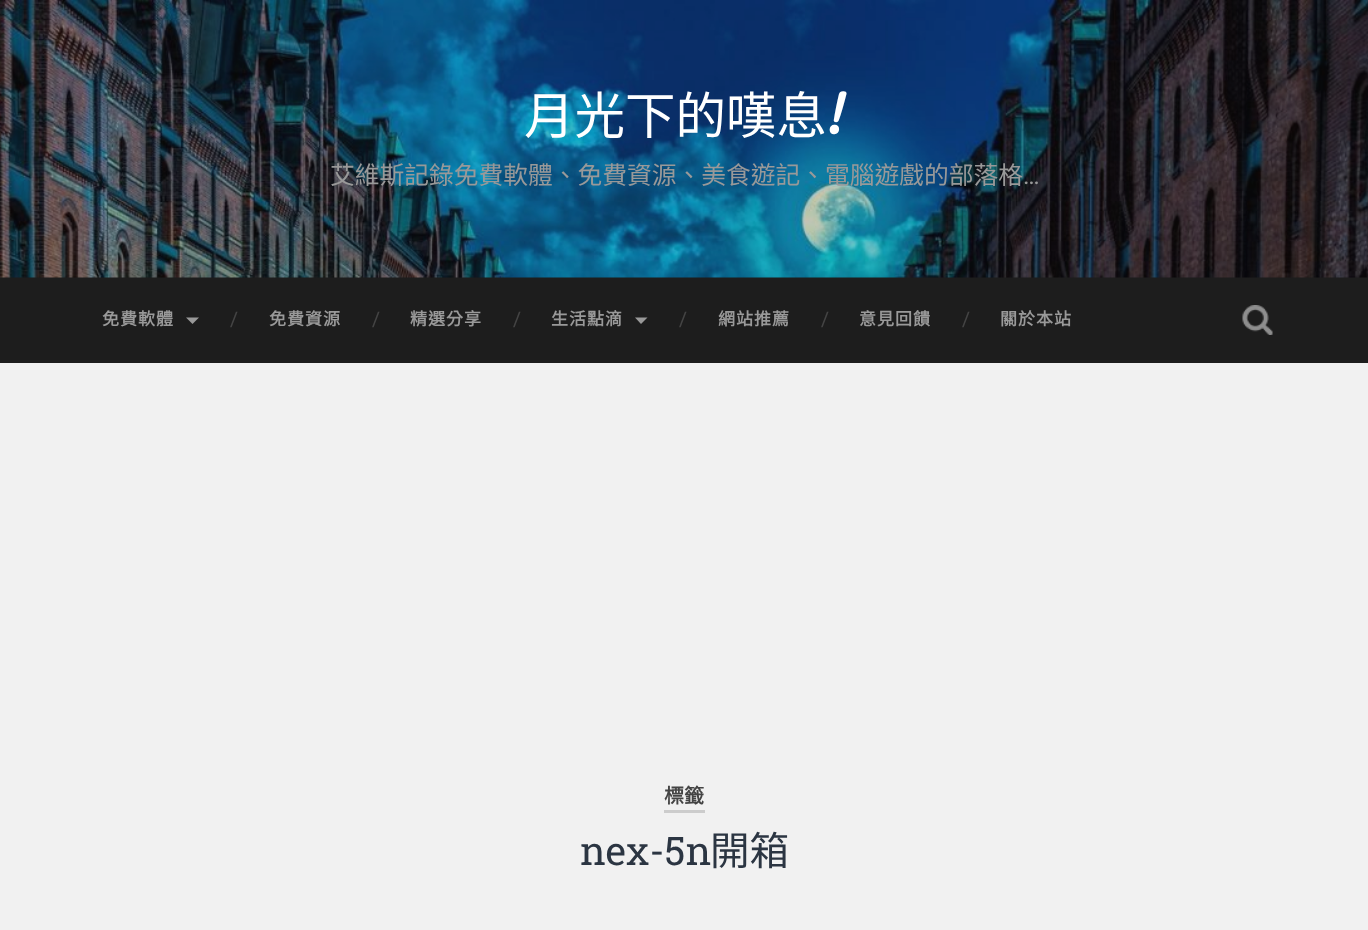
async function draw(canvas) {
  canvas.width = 1368
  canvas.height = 930
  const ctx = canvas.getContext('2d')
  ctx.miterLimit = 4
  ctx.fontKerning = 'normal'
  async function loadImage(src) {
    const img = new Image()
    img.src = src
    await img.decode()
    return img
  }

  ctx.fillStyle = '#f1f1f1'
  ctx.fillRect(0, 0, 1368, 930)
  ctx.fillStyle = '#1d1d1d'
  ctx.fillRect(0, 277, 1368, 86)
  ctx.drawImage(await loadImage('image0.png'), 0, 0, 1368, 278)
  ctx.font = '50.5px Noto Sans CJK TC'
  ctx.fillStyle = '#fff'
  ctx.fillText('月光下的嘆息', 524, 134)
  ctx.font = '50.5px Pacifico'
  ctx.fillText('!', 828, 134)
  ctx.font = '24.75px Noto Sans CJK TC'
  ctx.fillStyle = '#999'
  ctx.fillText('艾維斯記錄免費軟體、免費資源、美食遊記、電腦遊戲的部落格', 330, 184)
  ctx.font = '24.75px Roboto'
  ctx.fillText('…', 1023, 184)
  ctx.letterSpacing = '1px'
  ctx.font = 'bold 17px Noto Sans CJK TC'
  ctx.fillText('免費軟體', 102, 325)
  ctx.beginPath()
  ctx.moveTo(186, 317.5)
  ctx.lineTo(199, 317.5)
  ctx.lineTo(192.5, 324)
  ctx.closePath()
  ctx.fill()
  ctx.letterSpacing = '0px'
  ctx.font = '20px Roboto Slab'
  ctx.fillStyle = '#444'
  ctx.fillText('/', 230, 326)
  ctx.letterSpacing = '1px'
  ctx.font = 'bold 17px Noto Sans CJK TC'
  ctx.fillStyle = '#999'
  ctx.fillText('免費資源', 269, 325)
  ctx.letterSpacing = '0px'
  ctx.font = '20px Roboto Slab'
  ctx.fillStyle = '#444'
  ctx.fillText('/', 372, 326)
  ctx.letterSpacing = '1px'
  ctx.font = 'bold 17px Noto Sans CJK TC'
  ctx.fillStyle = '#999'
  ctx.fillText('精選分享', 410, 325)
  ctx.letterSpacing = '0px'
  ctx.font = '20px Roboto Slab'
  ctx.fillStyle = '#444'
  ctx.fillText('/', 513, 326)
  ctx.letterSpacing = '1px'
  ctx.font = 'bold 17px Noto Sans CJK TC'
  ctx.fillStyle = '#999'
  ctx.fillText('生活點滴', 551, 325)
  ctx.beginPath()
  ctx.moveTo(635, 317.5)
  ctx.lineTo(647.5, 317.5)
  ctx.lineTo(641, 324)
  ctx.closePath()
  ctx.fill()
  ctx.letterSpacing = '0px'
  ctx.font = '20px Roboto Slab'
  ctx.fillStyle = '#444'
  ctx.fillText('/', 679, 326)
  ctx.letterSpacing = '1px'
  ctx.font = 'bold 17px Noto Sans CJK TC'
  ctx.fillStyle = '#999'
  ctx.fillText('網站推薦', 718, 325)
  ctx.letterSpacing = '0px'
  ctx.font = '20px Roboto Slab'
  ctx.fillStyle = '#444'
  ctx.fillText('/', 821, 326)
  ctx.letterSpacing = '1px'
  ctx.font = 'bold 17px Noto Sans CJK TC'
  ctx.fillStyle = '#999'
  ctx.fillText('意見回饋', 859, 325)
  ctx.letterSpacing = '0px'
  ctx.font = '20px Roboto Slab'
  ctx.fillStyle = '#444'
  ctx.fillText('/', 962, 326)
  ctx.letterSpacing = '1px'
  ctx.font = 'bold 17px Noto Sans CJK TC'
  ctx.fillStyle = '#999'
  ctx.fillText('關於本站', 1000, 325)
  ctx.drawImage(await loadImage('image1.png'), 1242, 305, 31, 30)
  ctx.fillStyle = '#ccc'
  ctx.fillRect(664, 810, 41, 3)
  ctx.letterSpacing = '0px'
  ctx.font = 'bold 20px Noto Sans CJK TC'
  ctx.fillStyle = '#444'
  ctx.fillText('標籤', 664, 803)
  ctx.font = '39.5px Roboto Slab'
  ctx.fillStyle = '#2b3542'
  ctx.fillText('nex-5n', 580, 865)
  ctx.font = '39.5px Noto Sans CJK TC'
  ctx.fillText('開箱', 710, 865)
}

draw(document.querySelector('canvas'))
